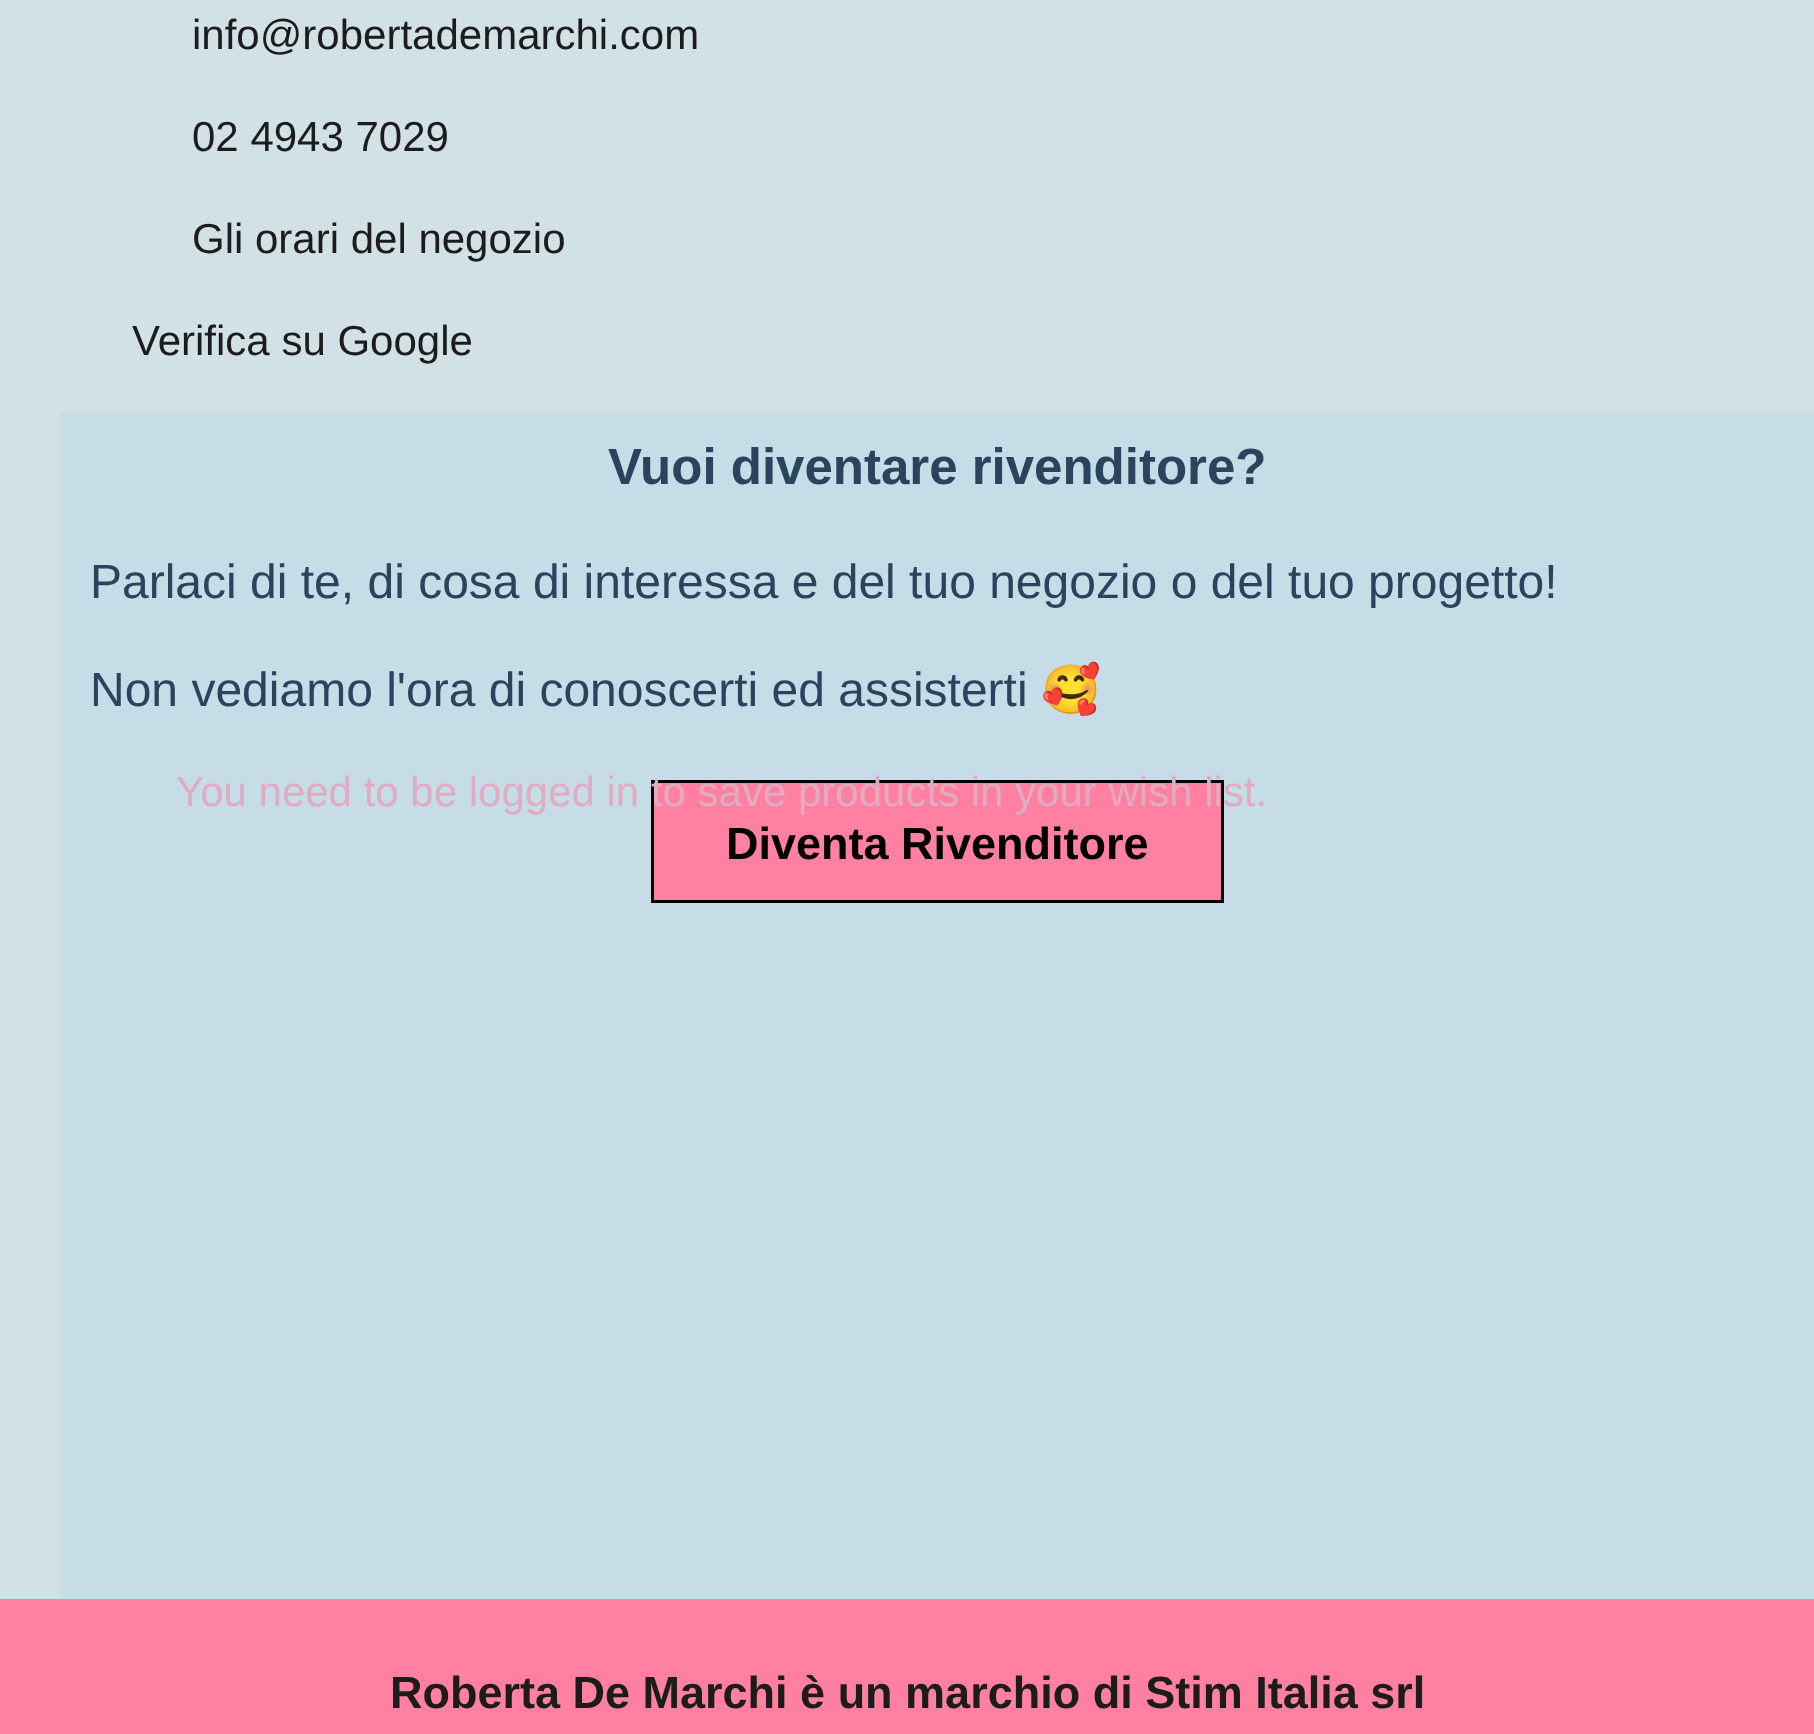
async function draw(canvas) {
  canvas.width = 1814
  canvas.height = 1734
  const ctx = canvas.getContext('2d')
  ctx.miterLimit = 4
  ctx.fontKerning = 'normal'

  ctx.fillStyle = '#d2e1e6'
  ctx.fillRect(0, 0, 1814, 1734)
  ctx.font = '42px Liberation Sans'
  ctx.fillStyle = '#1c1c1c'
  ctx.fillText('info@robertademarchi.com', 192, 49)
  ctx.fillText('02 4943 7029', 192, 151)
  ctx.fillText('Gli orari del negozio', 192, 253)
  ctx.fillText('Verifica su Google', 132, 355)
  ctx.fillStyle = '#c6dce7'
  ctx.fillRect(60, 411, 1754, 1188)
  ctx.font = 'bold 51px Liberation Sans'
  ctx.fillStyle = '#29445c'
  ctx.fillText('Vuoi diventare rivenditore?', 608, 484)
  ctx.font = '48px Liberation Sans'
  ctx.fillText('Parlaci di te, di cosa di interessa e del tuo negozio o del tuo progetto!', 90, 598)
  ctx.fillText('Non vediamo l\'ora di conoscerti ed assisterti', 90, 706)
  ctx.font = '48px Noto Color Emoji'
  ctx.fillText('🥰', 1041, 706)
  ctx.fillStyle = '#ff80a0'
  ctx.beginPath()
  ctx.rect(652.5, 781.5, 570, 120)
  ctx.fill()
  ctx.strokeStyle = '#000'
  ctx.lineWidth = 3
  ctx.stroke()
  ctx.font = 'bold 45px Liberation Sans'
  ctx.fillStyle = '#000'
  ctx.fillText('Diventa Rivenditore', 726, 859)
  ctx.fillStyle = '#ff80a0'
  ctx.fillRect(0, 1599, 1814, 135)
  ctx.fillStyle = '#1c1c1c'
  ctx.fillText('Roberta De Marchi è un marchio di Stim Italia srl', 390, 1708)
  ctx.font = '42px Liberation Sans'
  ctx.fillStyle = '#e1acc2'
  ctx.fillText('You need to be logged in to save products in your wish list.', 176, 806)
}

draw(document.querySelector('canvas'))
